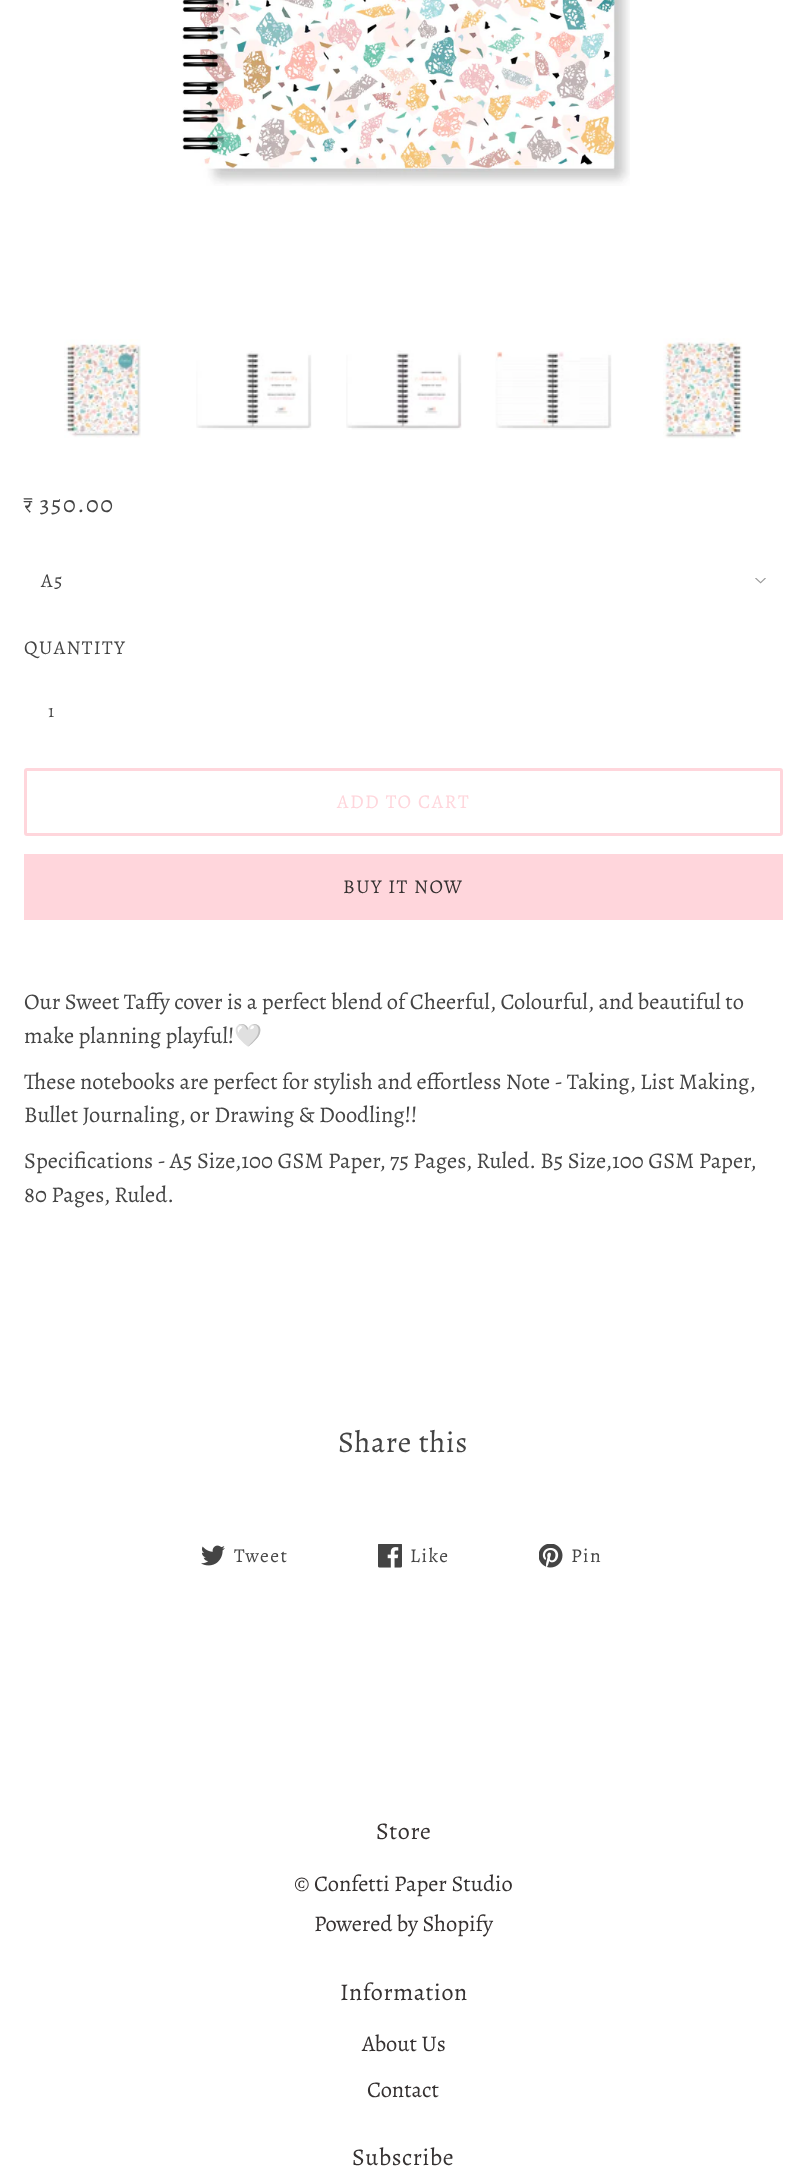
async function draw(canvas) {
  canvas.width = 806
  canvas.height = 2174
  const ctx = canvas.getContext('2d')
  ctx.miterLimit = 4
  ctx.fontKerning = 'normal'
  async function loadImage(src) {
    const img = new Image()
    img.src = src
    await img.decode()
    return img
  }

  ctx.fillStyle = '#fff'
  ctx.fillRect(0, 0, 806, 2174)
  ctx.drawImage(await loadImage('image0.png'), 182, 0, 448, 186)
  ctx.drawImage(await loadImage('image1.png'), 64, 339, 77, 99)
  ctx.drawImage(await loadImage('image2.png'), 196, 351, 116, 79)
  ctx.drawImage(await loadImage('image3.png'), 346, 350, 116, 80)
  ctx.drawImage(await loadImage('image4.png'), 495, 351, 117, 79)
  ctx.drawImage(await loadImage('image5.png'), 663, 338, 79, 101)
  ctx.letterSpacing = '1.5px'
  ctx.font = '24px Alegreya'
  ctx.fillStyle = '#444'
  ctx.fillText('₹ 350.00', 24, 512)
  ctx.drawImage(await loadImage('image6.png'), 755, 578, 11, 6)
  ctx.font = '19.5px Alegreya'
  ctx.fillText('A5', 41, 587)
  ctx.fillText('QUANTITY', 24, 654)
  ctx.letterSpacing = '1px'
  ctx.font = '18px Alegreya'
  ctx.fillText('1', 48, 717)
  ctx.beginPath()
  ctx.roundRect(25.5, 769.5, 756, 65, 1.5)
  ctx.strokeStyle = '#ffd6dc'
  ctx.lineWidth = 3
  ctx.stroke()
  ctx.letterSpacing = '1.5px'
  ctx.font = '19.5px Alegreya'
  ctx.fillStyle = '#ffd6dc'
  ctx.fillText('ADD TO CART', 337, 808)
  ctx.fillRect(24, 854, 759, 66)
  ctx.fillStyle = '#353131'
  ctx.fillText('BUY IT NOW', 343, 893)
  ctx.letterSpacing = '0px'
  ctx.font = '22.5px Alegreya'
  ctx.fillStyle = '#444'
  ctx.fillText('Our Sweet Taffy cover is a perfect blend of Cheerful, Colourful, and beautiful to', 24, 1009)
  ctx.fillText('make planning playful!', 24, 1043)
  ctx.font = '22.5px Noto Color Emoji'
  ctx.fillText('🤍', 234, 1043)
  ctx.font = '22.5px Alegreya'
  ctx.fillText('These notebooks are perfect for stylish and effortless Note - Taking, List Making,', 24, 1089)
  ctx.fillText('Bullet Journaling, or Drawing & Doodling!!', 24, 1122)
  ctx.fillText('Specifications - A5 Size,100 GSM Paper, 75 Pages, Ruled. B5 Size,100 GSM Paper,', 24, 1168)
  ctx.fillText('80 Pages, Ruled.', 24, 1202)
  ctx.letterSpacing = '0.75px'
  ctx.font = '30px Alegreya'
  ctx.fillText('Share this', 338, 1452)
  ctx.drawImage(await loadImage('image7.png'), 201, 1545, 24, 21)
  ctx.letterSpacing = '1.5px'
  ctx.font = '19.5px Alegreya'
  ctx.fillText('Tweet', 234, 1562)
  ctx.drawImage(await loadImage('image8.png'), 378, 1544, 24, 24)
  ctx.fillText('Like', 410, 1562)
  ctx.drawImage(await loadImage('image9.png'), 539, 1544, 24, 24)
  ctx.fillText('Pin', 571, 1562)
  ctx.letterSpacing = '0.6px'
  ctx.font = '24px Alegreya'
  ctx.fillStyle = '#353131'
  ctx.fillText('Store', 376, 1839)
  ctx.letterSpacing = '0px'
  ctx.font = '22.5px Alegreya'
  ctx.fillText('© Confetti Paper Studio', 294, 1891)
  ctx.fillText('Powered by Shopify', 314, 1931)
  ctx.letterSpacing = '0.6px'
  ctx.font = '24px Alegreya'
  ctx.fillText('Information', 340, 2000)
  ctx.letterSpacing = '0px'
  ctx.font = '22.5px Alegreya'
  ctx.fillText('About Us', 362, 2051)
  ctx.fillText('Contact', 367, 2097)
  ctx.letterSpacing = '0.6px'
  ctx.font = '24px Alegreya'
  ctx.fillText('Subscribe', 352, 2165)
}

draw(document.querySelector('canvas'))
